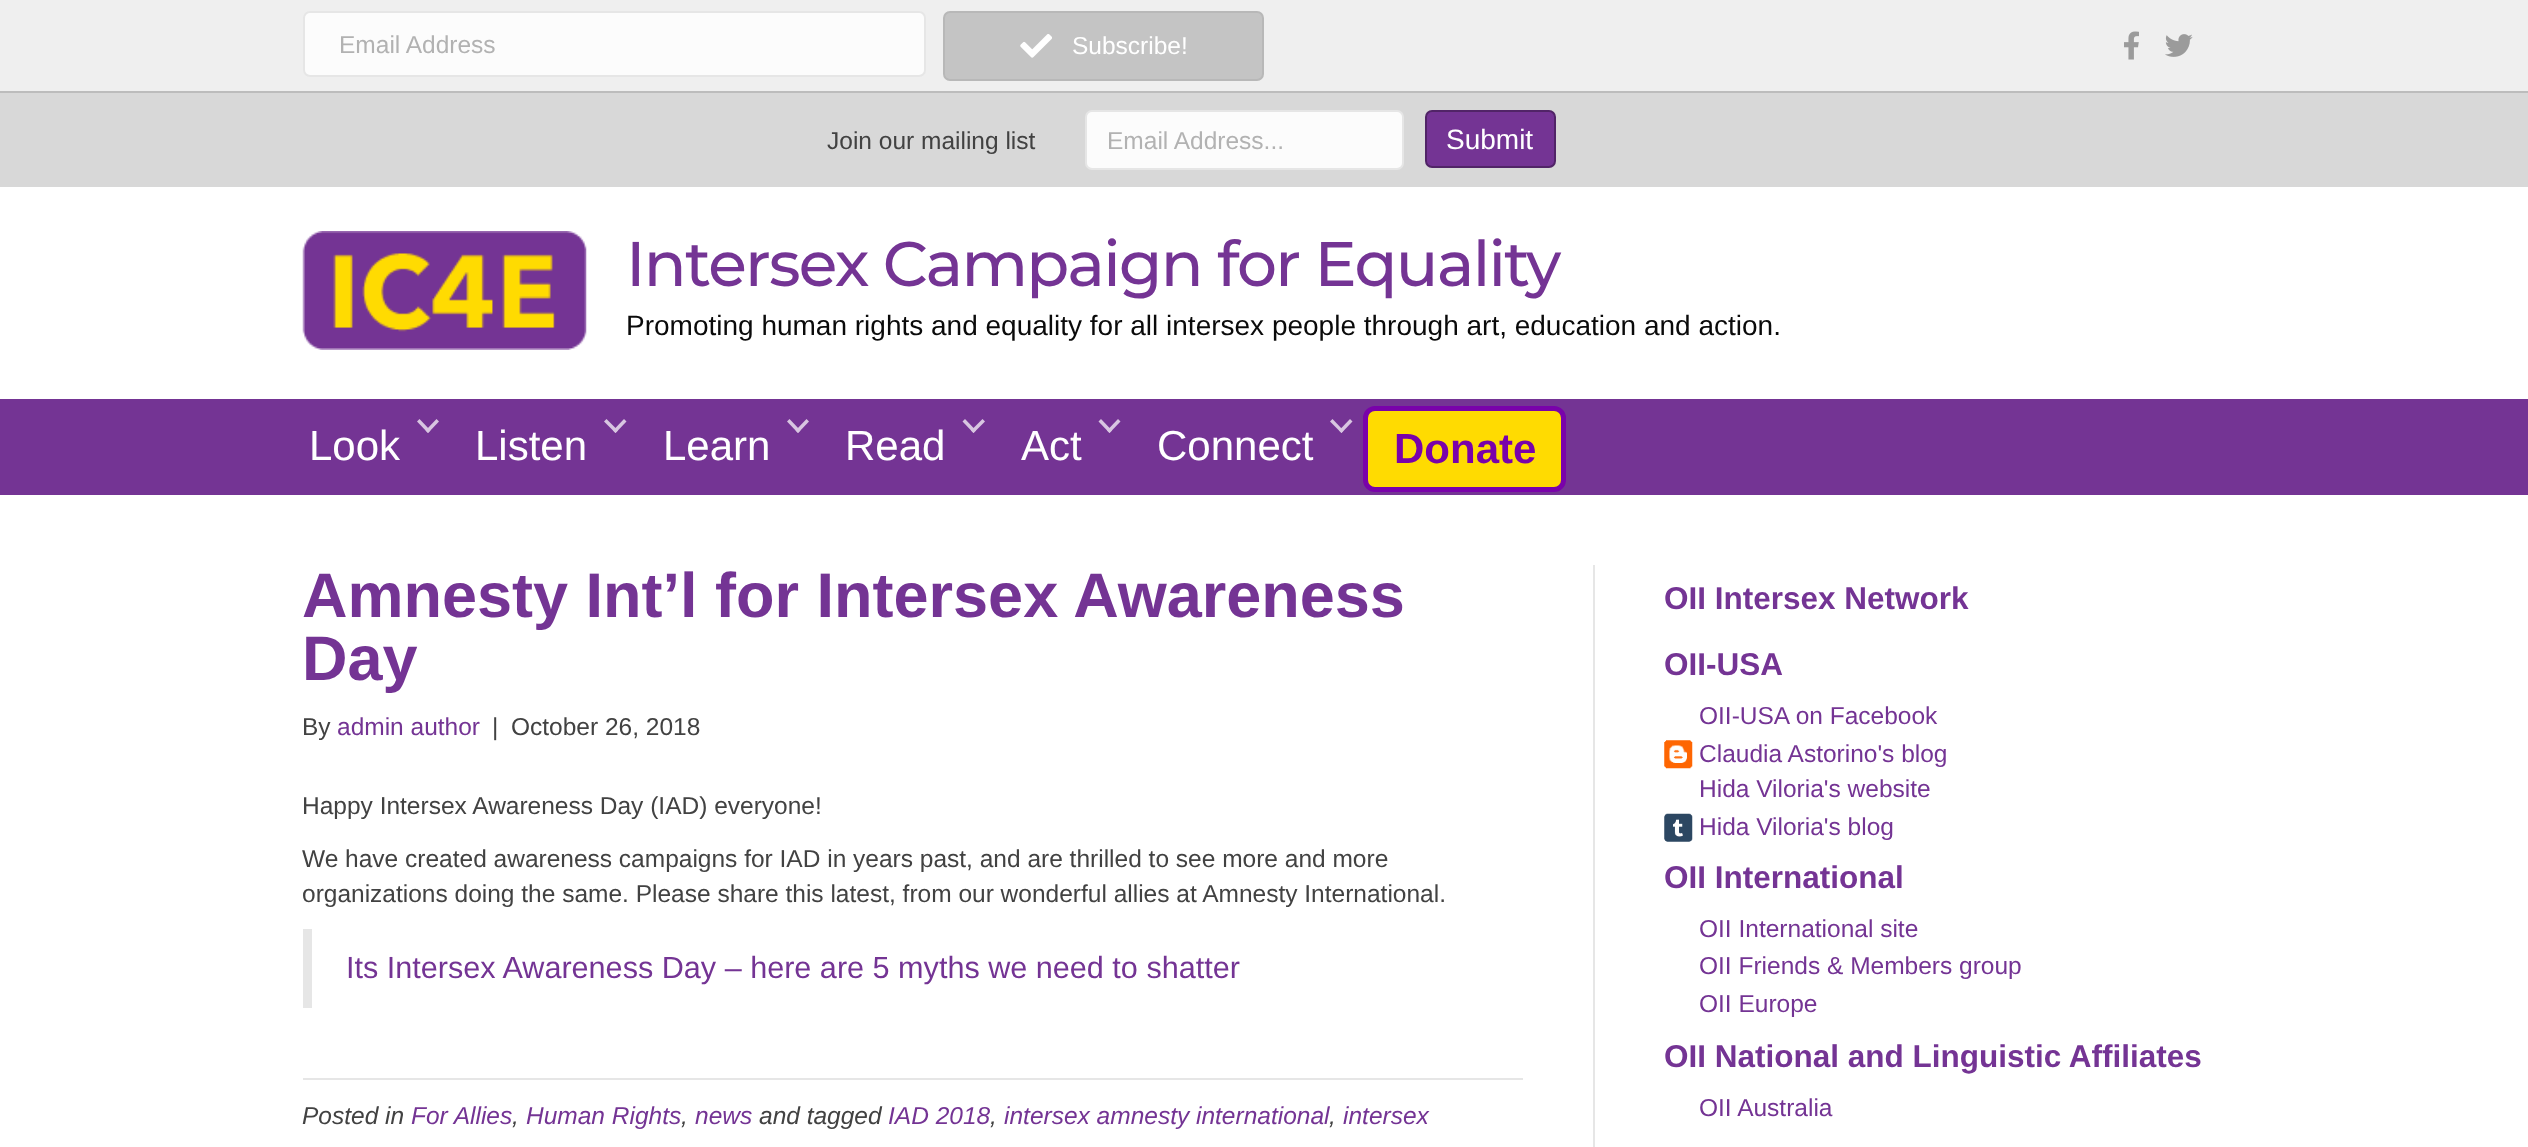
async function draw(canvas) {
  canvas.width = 2528
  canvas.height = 1147
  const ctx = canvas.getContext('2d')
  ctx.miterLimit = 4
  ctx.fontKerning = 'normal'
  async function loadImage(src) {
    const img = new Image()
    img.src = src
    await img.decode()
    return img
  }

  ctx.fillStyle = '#d8d8d8'
  ctx.fillRect(0, 0, 2528, 1147)
  ctx.fillStyle = '#efefef'
  ctx.fillRect(0, 0, 2528, 91)
  ctx.fillStyle = '#bcbcbc'
  ctx.fillRect(0, 91, 2528, 2)
  ctx.fillStyle = '#fcfcfc'
  ctx.beginPath()
  ctx.roundRect(304, 12, 621, 64, 6)
  ctx.fill()
  ctx.strokeStyle = '#e6e6e6'
  ctx.lineWidth = 2
  ctx.stroke()
  ctx.font = '24.5px Liberation Sans'
  ctx.fillStyle = '#b2b2b2'
  ctx.fillText('Email Address', 339, 53)
  ctx.fillStyle = '#c4c4c4'
  ctx.beginPath()
  ctx.roundRect(944, 12, 319, 68, 6)
  ctx.fill()
  ctx.strokeStyle = '#b8b8b8'
  ctx.stroke()
  ctx.drawImage(await loadImage('image0.png'), 1020, 34, 32, 24)
  ctx.fillStyle = '#fff'
  ctx.fillText('Subscribe!', 1072, 54)
  ctx.drawImage(await loadImage('image1.png'), 2124, 31, 15, 29)
  ctx.drawImage(await loadImage('image2.png'), 2165, 34, 28, 23)
  ctx.fillStyle = '#424242'
  ctx.fillText('Join our mailing list', 827, 149)
  ctx.fillStyle = '#fcfcfc'
  ctx.beginPath()
  ctx.roundRect(1086, 111, 317, 58, 6)
  ctx.fill()
  ctx.strokeStyle = '#e6e6e6'
  ctx.stroke()
  ctx.fillStyle = '#b2b2b2'
  ctx.fillText('Email Address...', 1107, 149)
  ctx.fillStyle = '#743494'
  ctx.beginPath()
  ctx.roundRect(1426, 111, 129, 56, 6)
  ctx.fill()
  ctx.strokeStyle = '#512467'
  ctx.stroke()
  ctx.font = '28px Liberation Sans'
  ctx.fillStyle = '#fff'
  ctx.fillText('Submit', 1446, 149)
  ctx.fillRect(0, 187, 2528, 212)
  ctx.drawImage(await loadImage('image3.png'), 302, 231, 285, 119)
  ctx.letterSpacing = '-1.75px'
  ctx.font = '100 63px Montserrat'
  ctx.fillStyle = '#743494'
  ctx.fillText('Intersex Campaign for Equality', 626, 286)
  ctx.letterSpacing = '0px'
  ctx.font = '28px Liberation Sans'
  ctx.fillStyle = '#0a0a0a'
  ctx.fillText('Promoting human rights and equality for all intersex people through art, education and action.', 626, 335)
  ctx.fillStyle = '#743494'
  ctx.fillRect(0, 399, 2528, 96)
  ctx.fillStyle = '#d8c6e1'
  ctx.beginPath()
  ctx.moveTo(436.5, 419)
  ctx.lineTo(439, 421.5)
  ctx.lineTo(428, 433)
  ctx.lineTo(425.5, 430.5)
  ctx.closePath()
  ctx.fill()
  ctx.beginPath()
  ctx.moveTo(419.5, 419)
  ctx.lineTo(430.5, 430.5)
  ctx.lineTo(428, 433)
  ctx.lineTo(417, 421.5)
  ctx.closePath()
  ctx.fill()
  ctx.font = '42px Liberation Sans'
  ctx.fillStyle = '#fff'
  ctx.fillText('Look', 309, 460)
  ctx.fillStyle = '#d8c6e1'
  ctx.beginPath()
  ctx.moveTo(624, 419)
  ctx.lineTo(626.5, 421.5)
  ctx.lineTo(615.5, 433)
  ctx.lineTo(613, 430.5)
  ctx.closePath()
  ctx.fill()
  ctx.beginPath()
  ctx.moveTo(606.5, 419)
  ctx.lineTo(618, 430.5)
  ctx.lineTo(615.5, 433)
  ctx.lineTo(604, 421.5)
  ctx.closePath()
  ctx.fill()
  ctx.fillStyle = '#fff'
  ctx.fillText('Listen', 475, 460)
  ctx.fillStyle = '#d8c6e1'
  ctx.beginPath()
  ctx.moveTo(806.5, 419)
  ctx.lineTo(809, 421.5)
  ctx.lineTo(798, 433)
  ctx.lineTo(795.5, 430.5)
  ctx.closePath()
  ctx.fill()
  ctx.beginPath()
  ctx.moveTo(789.5, 419)
  ctx.lineTo(800.5, 430.5)
  ctx.lineTo(798, 433)
  ctx.lineTo(787, 421.5)
  ctx.closePath()
  ctx.fill()
  ctx.fillStyle = '#fff'
  ctx.fillText('Learn', 663, 460)
  ctx.fillStyle = '#d8c6e1'
  ctx.beginPath()
  ctx.moveTo(982.5, 419)
  ctx.lineTo(985, 421.5)
  ctx.lineTo(973.5, 433)
  ctx.lineTo(971, 430.5)
  ctx.closePath()
  ctx.fill()
  ctx.beginPath()
  ctx.moveTo(965, 419)
  ctx.lineTo(976, 430.5)
  ctx.lineTo(973.5, 433)
  ctx.lineTo(962.5, 421.5)
  ctx.closePath()
  ctx.fill()
  ctx.fillStyle = '#fff'
  ctx.fillText('Read', 845, 460)
  ctx.fillStyle = '#d8c6e1'
  ctx.beginPath()
  ctx.moveTo(1118, 419)
  ctx.lineTo(1120.5, 421.5)
  ctx.lineTo(1109.5, 433)
  ctx.lineTo(1107, 430.5)
  ctx.closePath()
  ctx.fill()
  ctx.beginPath()
  ctx.moveTo(1101, 419)
  ctx.lineTo(1112, 430.5)
  ctx.lineTo(1109.5, 433)
  ctx.lineTo(1098.5, 421.5)
  ctx.closePath()
  ctx.fill()
  ctx.fillStyle = '#fff'
  ctx.fillText('Act', 1021, 460)
  ctx.fillStyle = '#d8c6e1'
  ctx.beginPath()
  ctx.moveTo(1350, 419)
  ctx.lineTo(1352.5, 421.5)
  ctx.lineTo(1341.5, 433)
  ctx.lineTo(1339, 430.5)
  ctx.closePath()
  ctx.fill()
  ctx.beginPath()
  ctx.moveTo(1332.5, 419)
  ctx.lineTo(1343.5, 430.5)
  ctx.lineTo(1341.5, 433)
  ctx.lineTo(1330, 421.5)
  ctx.closePath()
  ctx.fill()
  ctx.fillStyle = '#fff'
  ctx.fillText('Connect', 1157, 460)
  ctx.fillStyle = '#ffdb01'
  ctx.beginPath()
  ctx.roundRect(1365.5, 408.5, 198, 81, 9.5)
  ctx.fill()
  ctx.strokeStyle = '#7902aa'
  ctx.lineWidth = 5
  ctx.stroke()
  ctx.font = 'bold 42px Liberation Sans'
  ctx.fillStyle = '#7902aa'
  ctx.fillText('Donate', 1394, 463)
  ctx.fillStyle = '#fff'
  ctx.fillRect(0, 495, 2528, 652)
  ctx.fillStyle = '#e6e6e6'
  ctx.fillRect(1593, 565, 2, 582)
  ctx.font = 'bold 63px Liberation Sans'
  ctx.fillStyle = '#743494'
  ctx.fillText('Amnesty Int’l for Intersex Awareness', 302, 617)
  ctx.fillText('Day', 302, 680)
  ctx.font = '24.5px Liberation Sans'
  ctx.fillStyle = '#424242'
  ctx.fillText('By', 302, 735)
  ctx.fillStyle = '#743494'
  ctx.fillText('admin author', 337, 735)
  ctx.fillStyle = '#424242'
  ctx.fillText('|', 492, 735)
  ctx.fillText('October 26, 2018', 511, 735)
  ctx.fillText('Happy Intersex Awareness Day (IAD) everyone!', 302, 814)
  ctx.fillText('We have created awareness campaigns for IAD in years past, and are thrilled to see more and more', 302, 867)
  ctx.fillText('organizations doing the same. Please share this latest, from our wonderful allies at Amnesty International.', 302, 902)
  ctx.fillStyle = '#e6e6e6'
  ctx.fillRect(303, 929, 9, 79)
  ctx.font = '30.6px Liberation Sans'
  ctx.fillStyle = '#743494'
  ctx.fillText('Its Intersex Awareness Day – here are 5 myths we need to shatter', 346, 978)
  ctx.fillStyle = '#e6e6e6'
  ctx.fillRect(303, 1078, 1220, 2)
  ctx.font = 'italic 24.5px Liberation Sans'
  ctx.fillStyle = '#424242'
  ctx.fillText('Posted in', 302, 1124)
  ctx.fillStyle = '#743494'
  ctx.fillText('For Allies', 411, 1124)
  ctx.fillStyle = '#424242'
  ctx.fillText(',', 512, 1124)
  ctx.fillStyle = '#743494'
  ctx.fillText('Human Rights', 526, 1124)
  ctx.fillStyle = '#424242'
  ctx.fillText(',', 681, 1124)
  ctx.fillStyle = '#743494'
  ctx.fillText('news', 695, 1124)
  ctx.fillStyle = '#424242'
  ctx.fillText('and tagged', 759, 1124)
  ctx.fillStyle = '#743494'
  ctx.fillText('IAD 2018', 888, 1124)
  ctx.fillStyle = '#424242'
  ctx.fillText(',', 990, 1124)
  ctx.fillStyle = '#743494'
  ctx.fillText('intersex amnesty international', 1004, 1124)
  ctx.fillStyle = '#424242'
  ctx.fillText(',', 1329, 1124)
  ctx.fillStyle = '#743494'
  ctx.fillText('intersex', 1343, 1124)
  ctx.font = 'bold 31.5px Liberation Sans'
  ctx.fillText('OII Intersex Network', 1664, 609)
  ctx.fillText('OII-USA', 1664, 675)
  ctx.font = '24.5px Liberation Sans'
  ctx.fillText('OII-USA on Facebook', 1699, 724)
  ctx.drawImage(await loadImage('image4.png'), 1664, 740, 29, 29)
  ctx.fillText('Claudia Astorino\'s blog', 1699, 762)
  ctx.fillText('Hida Viloria\'s website', 1699, 797)
  ctx.drawImage(await loadImage('image5.png'), 1664, 813, 29, 29)
  ctx.fillText('Hida Viloria\'s blog', 1699, 835)
  ctx.font = 'bold 31.5px Liberation Sans'
  ctx.fillText('OII International', 1664, 888)
  ctx.font = '24.5px Liberation Sans'
  ctx.fillText('OII International site', 1699, 937)
  ctx.fillText('OII Friends & Members group', 1699, 974)
  ctx.fillText('OII Europe', 1699, 1012)
  ctx.font = 'bold 31.5px Liberation Sans'
  ctx.fillText('OII National and Linguistic Affiliates', 1664, 1067)
  ctx.font = '24.5px Liberation Sans'
  ctx.fillText('OII Australia', 1699, 1116)
}

draw(document.querySelector('canvas'))
